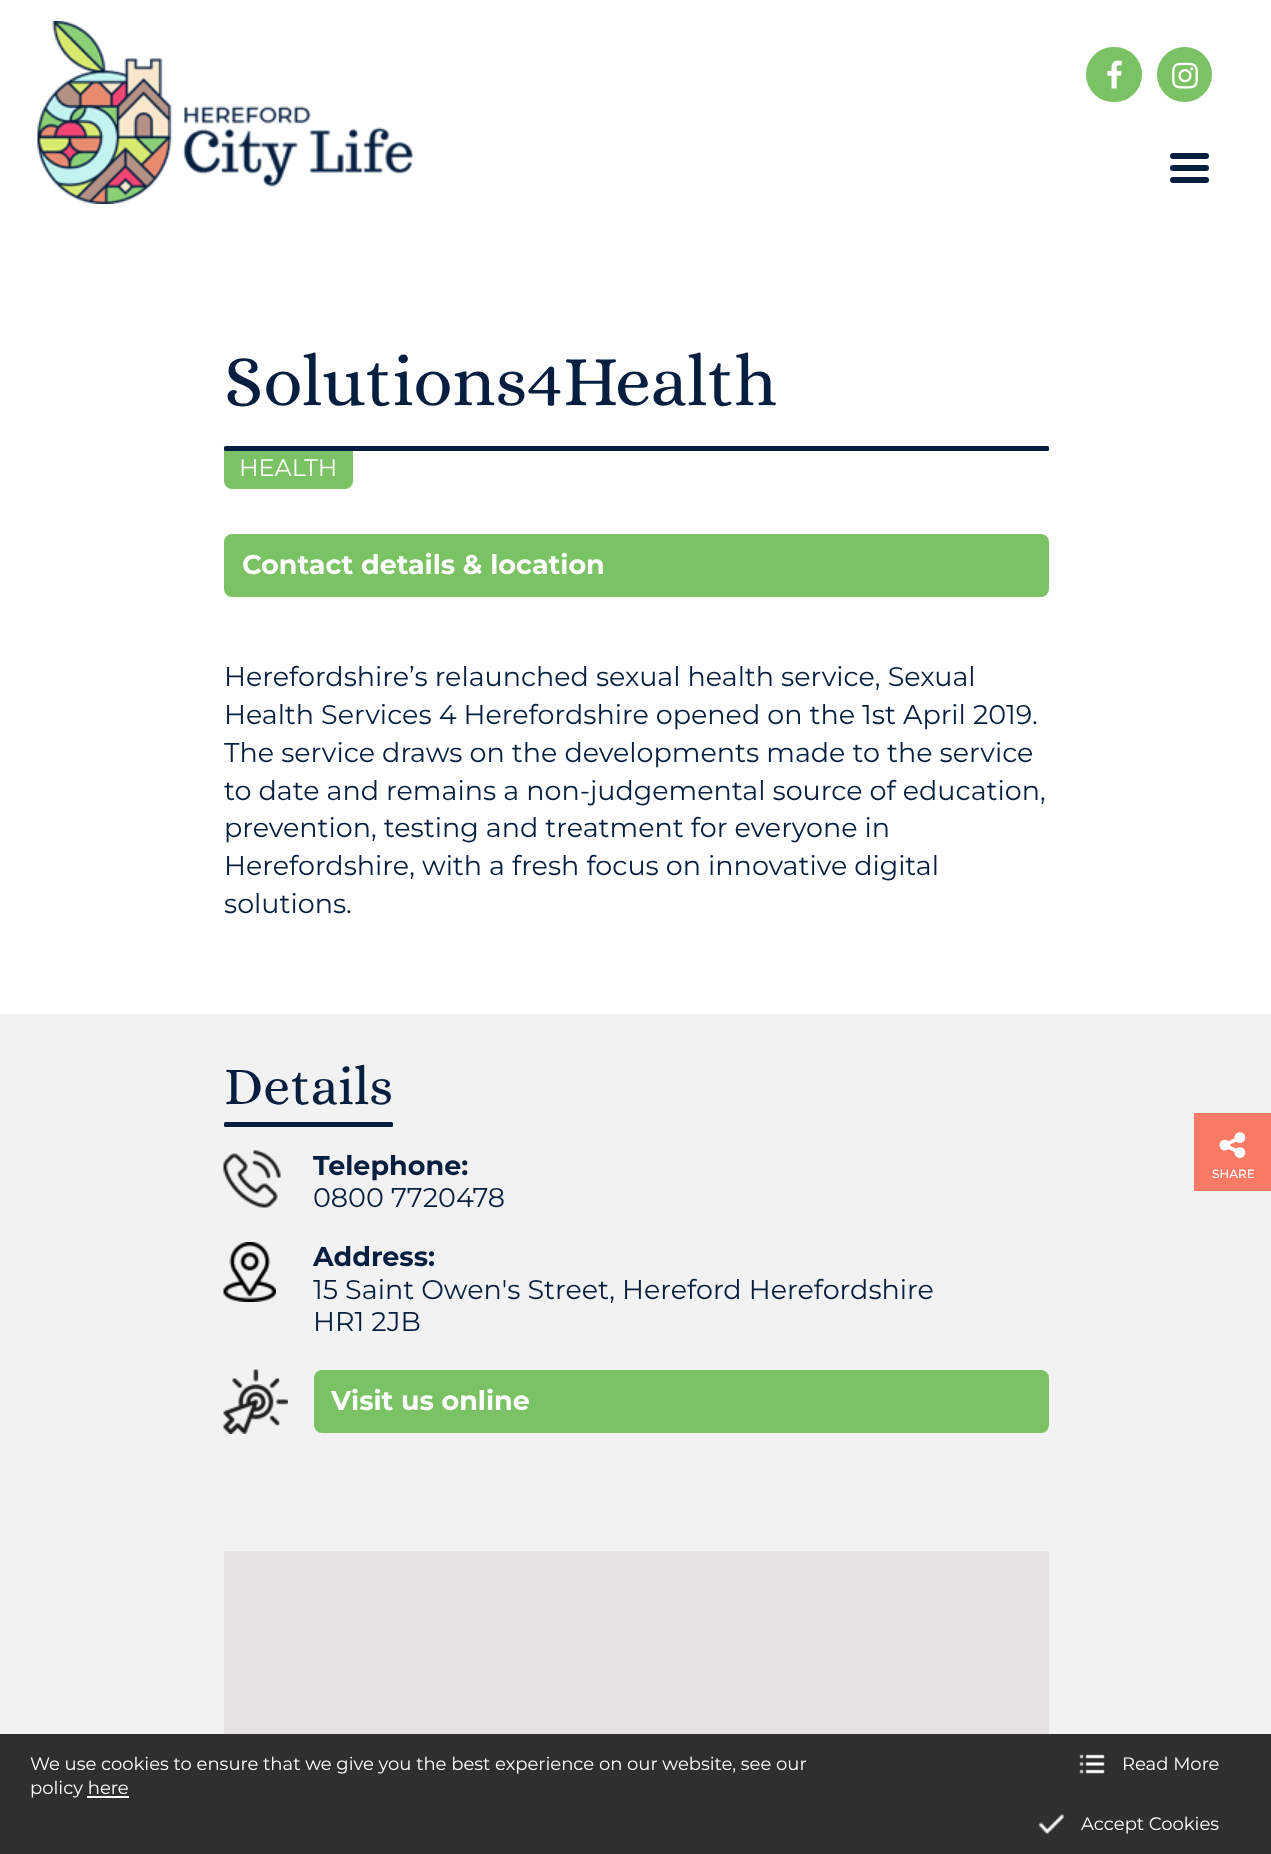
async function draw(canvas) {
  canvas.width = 1271
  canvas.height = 1854
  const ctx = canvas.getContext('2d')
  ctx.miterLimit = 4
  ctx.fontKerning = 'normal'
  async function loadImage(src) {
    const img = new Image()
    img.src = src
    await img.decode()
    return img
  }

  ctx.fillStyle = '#fff'
  ctx.fillRect(0, 0, 1271, 1854)
  ctx.drawImage(await loadImage('image0.png'), 37, 21, 376, 183)
  ctx.fillStyle = '#7bc265'
  ctx.beginPath()
  ctx.roundRect(1087.5, 48.5, 53, 52, 26)
  ctx.fill()
  ctx.strokeStyle = '#7bc265'
  ctx.lineWidth = 3
  ctx.stroke()
  ctx.drawImage(await loadImage('image1.png'), 1107, 60, 15, 29)
  ctx.beginPath()
  ctx.arc(1184.5, 74.5, 26, 0, 2 * Math.PI)
  ctx.fill()
  ctx.stroke()
  ctx.drawImage(await loadImage('image2.png'), 1172, 62, 26, 27)
  ctx.fillStyle = '#061f41'
  ctx.beginPath()
  ctx.roundRect(1170, 153, 39, 6, 3)
  ctx.fill()
  ctx.beginPath()
  ctx.roundRect(1170, 165, 39, 6, 3)
  ctx.fill()
  ctx.beginPath()
  ctx.roundRect(1170, 177, 39, 6, 3)
  ctx.fill()
  ctx.font = '72px Alice'
  ctx.fillText('Solutions4Health', 224, 405)
  ctx.fillStyle = '#7bc265'
  ctx.beginPath()
  ctx.roundRect(224, 450, 129, 39, [0, 0, 8, 8])
  ctx.fill()
  ctx.fillStyle = '#061f41'
  ctx.beginPath()
  ctx.roundRect(224, 446, 825, 5, 1.5)
  ctx.fill()
  ctx.font = '24px Montserrat'
  ctx.fillStyle = '#fff'
  ctx.fillText('HEALTH', 239, 476)
  ctx.fillStyle = '#7bc265'
  ctx.beginPath()
  ctx.roundRect(225.5, 535.5, 822, 60, 6.5)
  ctx.fill()
  ctx.stroke()
  ctx.font = 'bold 27px Montserrat'
  ctx.fillStyle = '#fff'
  ctx.fillText('Contact details & location', 242, 574)
  ctx.font = '27px Montserrat'
  ctx.fillStyle = '#061f41'
  ctx.fillText('Herefordshire’s relaunched sexual health service, Sexual', 224, 686)
  ctx.fillText('Health Services 4 Herefordshire opened on the 1st April 2019.', 224, 724)
  ctx.fillText('The service draws on the developments made to the service', 224, 762)
  ctx.fillText('to date and remains a non-judgemental source of education,', 224, 800)
  ctx.fillText('prevention, testing and treatment for everyone in', 224, 837)
  ctx.fillText('Herefordshire, with a fresh focus on innovative digital', 224, 875)
  ctx.fillText('solutions.', 224, 913)
  ctx.fillStyle = '#f2f2f2'
  ctx.fillRect(0, 1014, 1271, 720)
  ctx.font = '54px Alice'
  ctx.fillStyle = '#061f41'
  ctx.fillText('Details', 224, 1104)
  ctx.beginPath()
  ctx.roundRect(224, 1122, 169, 5, 1.5)
  ctx.fill()
  ctx.drawImage(await loadImage('image3.png'), 223, 1150, 58, 58)
  ctx.font = 'bold 27px Montserrat'
  ctx.fillText('Telephone:', 313, 1175)
  ctx.font = '27px Montserrat'
  ctx.fillText('0800 7720478', 313, 1207)
  ctx.drawImage(await loadImage('image4.png'), 223, 1242, 53, 60)
  ctx.font = 'bold 27px Montserrat'
  ctx.fillText('Address:', 313, 1266)
  ctx.font = '27px Montserrat'
  ctx.fillText('15 Saint Owen\'s Street,', 313, 1299)
  ctx.fillText('Hereford Herefordshire', 622, 1299)
  ctx.fillText('HR1 2JB', 313, 1331)
  ctx.drawImage(await loadImage('image5.png'), 223, 1369, 65, 65)
  ctx.fillStyle = '#7bc265'
  ctx.beginPath()
  ctx.roundRect(315.5, 1371.5, 732, 60, 6.5)
  ctx.fill()
  ctx.stroke()
  ctx.font = 'bold 27px Montserrat'
  ctx.fillStyle = '#fff'
  ctx.fillText('Visit us online', 331, 1410)
  ctx.fillStyle = '#e5e3df'
  ctx.fillRect(224, 1551, 825, 183)
  ctx.fillStyle = '#fb7a65'
  ctx.fillRect(1194, 1113, 77, 78)
  ctx.drawImage(await loadImage('image6.png'), 1219, 1132, 27, 26)
  ctx.font = '500 12px Montserrat'
  ctx.fillStyle = '#fff'
  ctx.fillText('SHARE', 1212, 1178)
  ctx.fillStyle = '#2f2f2f'
  ctx.fillRect(0, 1734, 1271, 120)
  ctx.font = '18px Montserrat'
  ctx.fillStyle = '#fff'
  ctx.fillText('We use cookies to ensure that we give you the best experience on our website, see our', 30, 1770)
  ctx.fillText('policy here', 30, 1794)
  ctx.fillRect(87, 1796, 42, 2)
  ctx.drawImage(await loadImage('image7.png'), 1079, 1754, 26, 20)
  ctx.fillText('Read More', 1122, 1770)
  ctx.drawImage(await loadImage('image8.png'), 1038, 1813, 27, 22)
  ctx.fillText('Accept Cookies', 1081, 1830)
}

draw(document.querySelector('canvas'))
